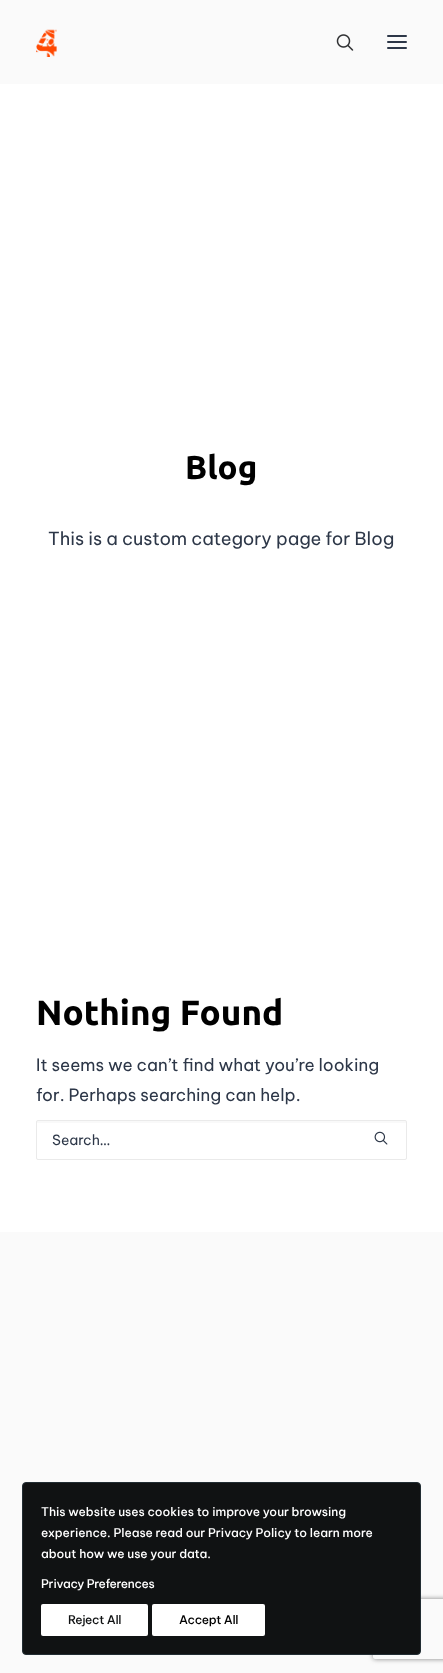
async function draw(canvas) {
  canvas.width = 443
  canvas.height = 1673
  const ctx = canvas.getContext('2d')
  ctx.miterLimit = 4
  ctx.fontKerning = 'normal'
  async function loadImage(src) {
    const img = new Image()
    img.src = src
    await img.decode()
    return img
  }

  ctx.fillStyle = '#fafafa'
  ctx.fillRect(0, 0, 443, 1673)
  ctx.drawImage(await loadImage('image0.png'), 36, 29, 21, 28)
  ctx.drawImage(await loadImage('image1.png'), 336, 34, 18, 17)
  ctx.fillStyle = '#2d3748'
  ctx.beginPath()
  ctx.roundRect(387, 41, 20, 2, 1)
  ctx.fill()
  ctx.beginPath()
  ctx.roundRect(387, 35, 20, 2, 1)
  ctx.fill()
  ctx.beginPath()
  ctx.roundRect(387, 47, 20, 2, 1)
  ctx.fill()
  ctx.fillStyle = '#fff'
  ctx.fillRect(0, 84, 443, 1148)
  ctx.font = 'bold 33px Ubuntu'
  ctx.fillStyle = '#000'
  ctx.fillText('Blog', 185, 479)
  ctx.font = '18px Be Vietnam Pro'
  ctx.fillStyle = '#2d3748'
  ctx.fillText('This is a custom category page for Blog', 48, 545)
  ctx.font = 'bold 35px Ubuntu'
  ctx.fillStyle = '#000'
  ctx.fillText('Nothing Found', 36, 1025)
  ctx.font = '17px Be Vietnam Pro'
  ctx.fillStyle = '#2d3748'
  ctx.fillText('It seems we can’t find what you’re looking', 36, 1071)
  ctx.fillText('for. Perhaps searching can help.', 36, 1101)
  ctx.fillStyle = '#f9f9f9'
  ctx.beginPath()
  ctx.moveTo(38, 1123)
  ctx.lineTo(405, 1123)
  ctx.bezierCurveTo(406, 1123, 406, 1123, 406, 1124)
  ctx.bezierCurveTo(406, 1123, 406, 1121, 405, 1121)
  ctx.lineTo(37, 1121)
  ctx.lineTo(37, 1124)
  ctx.bezierCurveTo(37, 1123, 37, 1123, 38, 1123)
  ctx.closePath()
  ctx.fill()
  ctx.beginPath()
  ctx.roundRect(36.5, 1120.5, 370, 39, 1.5)
  ctx.strokeStyle = '#eaeaea'
  ctx.stroke()
  ctx.font = '14px Be Vietnam Pro'
  ctx.fillStyle = '#2d3748'
  ctx.fillText('Search…', 52, 1145)
  ctx.drawImage(await loadImage('image2.png'), 374, 1131, 14, 14)
  ctx.save()
  ctx.beginPath()
  ctx.moveTo(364, 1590)
  ctx.lineTo(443, 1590)
  ctx.lineTo(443, 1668)
  ctx.lineTo(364, 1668)
  ctx.closePath()
  ctx.moveTo(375, 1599)
  ctx.lineTo(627, 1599)
  ctx.bezierCurveTo(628, 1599, 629, 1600, 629, 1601)
  ctx.lineTo(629, 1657)
  ctx.bezierCurveTo(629, 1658, 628, 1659, 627, 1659)
  ctx.lineTo(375, 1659)
  ctx.bezierCurveTo(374, 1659, 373, 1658, 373, 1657)
  ctx.lineTo(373, 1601)
  ctx.bezierCurveTo(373, 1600, 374, 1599, 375, 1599)
  ctx.closePath()
  ctx.clip('evenodd')
  ctx.fillStyle = '#808080'
  ctx.filter = 'blur(2.5px)'
  ctx.beginPath()
  ctx.roundRect(373, 1599, 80, 60, 2)
  ctx.fill()
  ctx.filter = 'none'
  ctx.restore()
  ctx.fillStyle = '#101213'
  ctx.beginPath()
  ctx.roundRect(22.5, 1482.5, 398, 172, 3.5)
  ctx.fill()
  ctx.strokeStyle = '#222d33'
  ctx.stroke()
  ctx.font = '500 12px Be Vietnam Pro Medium'
  ctx.fillStyle = '#fff'
  ctx.fillText('This website uses cookies to improve your browsing', 41, 1516)
  ctx.fillText('experience. Please read our Privacy Policy to learn more', 41, 1537)
  ctx.fillText('about how we use your data.', 41, 1558)
  ctx.letterSpacing = '-0.25px'
  ctx.fillText('Privacy Preferences', 41, 1588)
  ctx.beginPath()
  ctx.roundRect(41, 1604, 107, 32, 2)
  ctx.fill()
  ctx.fillStyle = '#101213'
  ctx.fillText('Reject All', 68, 1624)
  ctx.fillStyle = '#fff'
  ctx.beginPath()
  ctx.roundRect(152, 1604, 113, 32, 2)
  ctx.fill()
  ctx.fillStyle = '#000'
  ctx.fillText('Accept All', 179, 1624)
}

draw(document.querySelector('canvas'))
